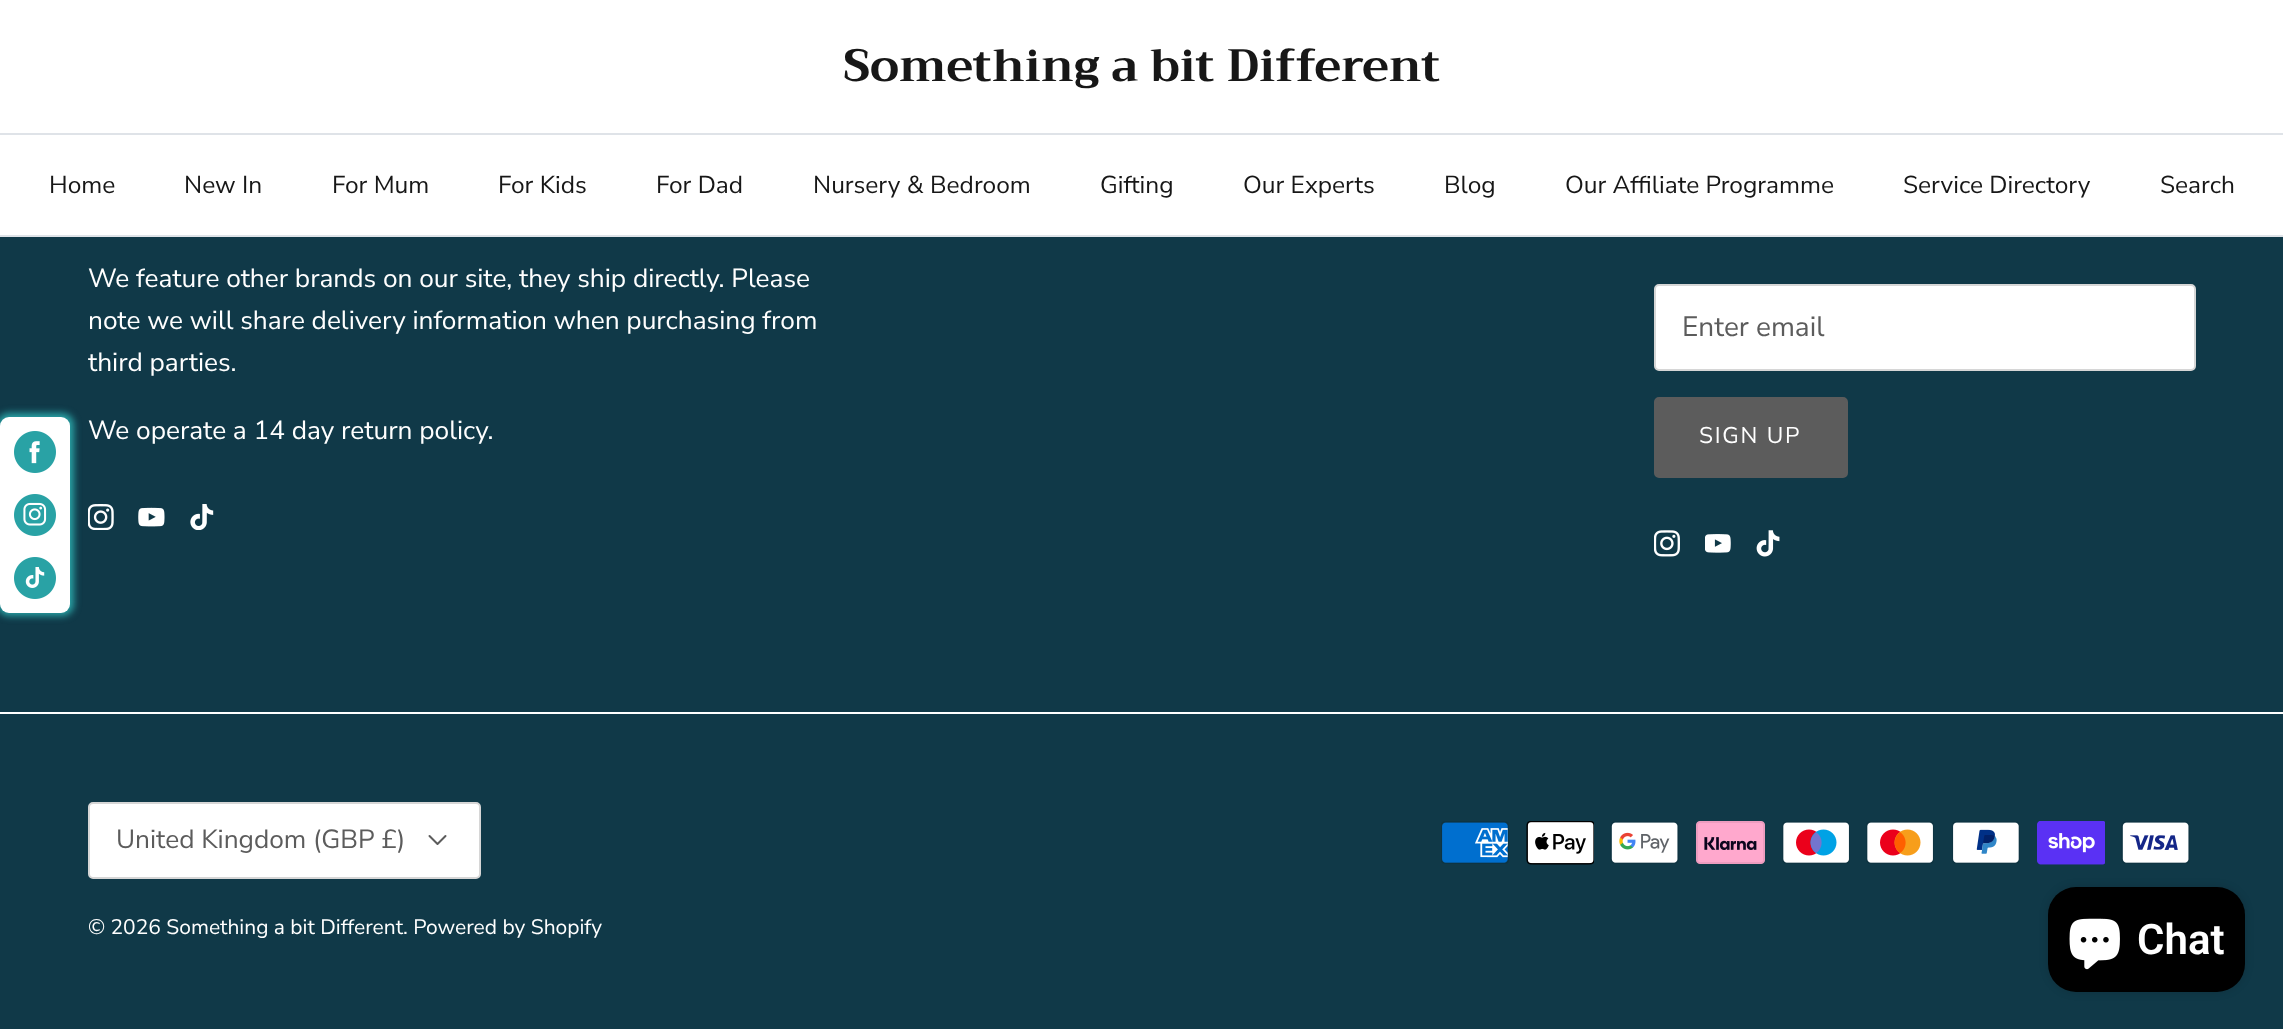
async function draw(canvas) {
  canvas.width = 2283
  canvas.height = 1029
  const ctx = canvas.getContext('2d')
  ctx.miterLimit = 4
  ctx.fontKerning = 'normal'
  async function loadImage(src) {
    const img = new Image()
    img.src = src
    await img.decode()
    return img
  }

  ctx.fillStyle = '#103948'
  ctx.fillRect(0, 0, 2283, 1029)
  ctx.fillStyle = '#fff'
  ctx.fillRect(0, 0, 2283, 133)
  ctx.fillStyle = '#dfe3e8'
  ctx.fillRect(0, 133, 2283, 2)
  ctx.font = 'bold 45.5px Trirong'
  ctx.fillStyle = '#171717'
  ctx.fillText('Something a bit Different', 843, 81)
  ctx.fillStyle = '#dfe3e8'
  ctx.fillRect(0, 235, 2283, 2)
  ctx.fillStyle = '#fff'
  ctx.fillRect(0, 135, 2283, 100)
  ctx.font = '24.5px Nunito Sans'
  ctx.fillStyle = '#171717'
  ctx.fillText('Home', 49, 193)
  ctx.fillText('New In', 184, 193)
  ctx.fillText('For Mum', 332, 193)
  ctx.fillText('For Kids', 498, 193)
  ctx.fillText('For Dad', 656, 193)
  ctx.fillText('Nursery & Bedroom', 813, 193)
  ctx.fillText('Gifting', 1100, 193)
  ctx.fillText('Our Experts', 1243, 193)
  ctx.fillText('Blog', 1444, 193)
  ctx.fillText('Our Affiliate Programme', 1565, 193)
  ctx.fillText('Service Directory', 1903, 193)
  ctx.fillText('Search', 2160, 193)
  ctx.fillStyle = '#29a2a5'
  ctx.filter = 'blur(3.5px)'
  ctx.beginPath()
  ctx.roundRect(-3, 413, 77, 203, 12)
  ctx.fill()
  ctx.filter = 'none'
  ctx.fillStyle = '#fff'
  ctx.beginPath()
  ctx.roundRect(0, 417, 70, 196, 9)
  ctx.fill()
  ctx.drawImage(await loadImage('image0.png'), 14, 431, 42, 42)
  ctx.drawImage(await loadImage('image1.png'), 14, 494, 42, 42)
  ctx.drawImage(await loadImage('image2.png'), 14, 557, 42, 42)
  ctx.font = '26.25px Nunito Sans'
  ctx.fillText('We feature other brands on our site, they ship directly. Please', 88, 287)
  ctx.fillText('note we will share delivery information when purchasing from', 88, 329)
  ctx.fillText('third parties.', 88, 371)
  ctx.fillText('We operate a 14 day return policy.', 88, 439)
  ctx.drawImage(await loadImage('image3.png'), 88, 504, 26, 26)
  ctx.drawImage(await loadImage('image4.png'), 138, 507, 27, 20)
  ctx.drawImage(await loadImage('image5.png'), 190, 504, 24, 26)
  ctx.beginPath()
  ctx.roundRect(1655, 285, 540, 85, 4)
  ctx.fill()
  ctx.strokeStyle = '#d6d6d6'
  ctx.lineWidth = 2
  ctx.stroke()
  ctx.font = '28px Nunito Sans'
  ctx.fillStyle = '#5c5c5c'
  ctx.fillText('Enter email', 1682, 336)
  ctx.beginPath()
  ctx.roundRect(1655, 398, 192, 79, 4)
  ctx.fill()
  ctx.strokeStyle = '#5c5c5c'
  ctx.stroke()
  ctx.letterSpacing = '1.75px'
  ctx.font = '22.75px Nunito Sans'
  ctx.fillStyle = '#fff'
  ctx.fillText('SIGN UP', 1699, 443)
  ctx.drawImage(await loadImage('image6.png'), 1654, 530, 26, 27)
  ctx.drawImage(await loadImage('image7.png'), 1705, 534, 26, 19)
  ctx.drawImage(await loadImage('image8.png'), 1756, 530, 24, 27)
  ctx.fillRect(0, 712, 2283, 2)
  ctx.beginPath()
  ctx.roundRect(89, 803, 391, 75, 4)
  ctx.fill()
  ctx.strokeStyle = '#d6d6d6'
  ctx.stroke()
  ctx.letterSpacing = '0px'
  ctx.font = '26.25px Nunito Sans'
  ctx.fillStyle = '#5c5c5c'
  ctx.fillText('United Kingdom (GBP £)', 116, 848)
  ctx.beginPath()
  ctx.moveTo(429.5, 836)
  ctx.lineTo(437.5, 844)
  ctx.lineTo(445.5, 836)
  ctx.strokeStyle = '#5c5c5c'
  ctx.lineCap = 'round'
  ctx.lineJoin = 'round'
  ctx.stroke()
  ctx.font = '21px Nunito Sans'
  ctx.fillStyle = '#fff'
  ctx.fillText('© 2026 Something a bit Different', 88, 934)
  ctx.fillText('. Powered by Shopify', 403, 934)
  ctx.drawImage(await loadImage('image9.png'), 1441, 821, 68, 43)
  ctx.drawImage(await loadImage('image10.png'), 1526, 821, 68, 44)
  ctx.drawImage(await loadImage('image11.png'), 1610, 821, 69, 43)
  ctx.drawImage(await loadImage('image12.png'), 1696, 821, 69, 43)
  ctx.drawImage(await loadImage('image13.png'), 1782, 821, 68, 43)
  ctx.drawImage(await loadImage('image14.png'), 1866, 821, 68, 43)
  ctx.drawImage(await loadImage('image15.png'), 1952, 821, 68, 43)
  ctx.drawImage(await loadImage('image16.png'), 2037, 821, 68, 44)
  ctx.drawImage(await loadImage('image17.png'), 2121, 821, 69, 43)
  ctx.fillStyle = '#00000026'
  ctx.filter = 'blur(4.5px)'
  ctx.beginPath()
  ctx.roundRect(2048, 887, 197, 105, 28)
  ctx.fill()
  ctx.filter = 'none'
  ctx.fillStyle = '#000'
  ctx.beginPath()
  ctx.roundRect(2048, 887, 197, 105, 28)
  ctx.fill()
  ctx.drawImage(await loadImage('image18.png'), 2069, 918, 51, 52)
  ctx.font = '600 42px Roboto'
  ctx.fillStyle = '#fff'
  ctx.fillText('Chat', 2137, 954)
}

draw(document.querySelector('canvas'))
